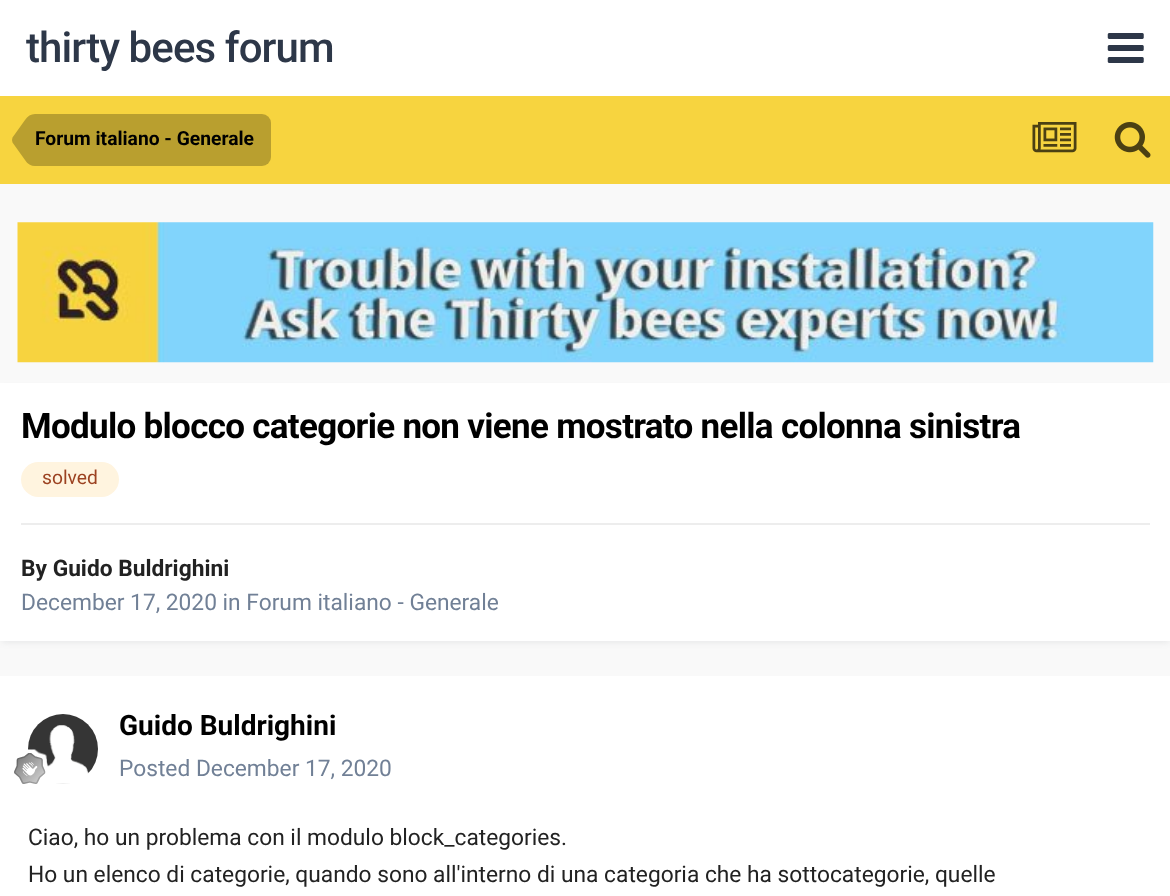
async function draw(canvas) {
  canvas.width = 1170
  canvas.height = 896
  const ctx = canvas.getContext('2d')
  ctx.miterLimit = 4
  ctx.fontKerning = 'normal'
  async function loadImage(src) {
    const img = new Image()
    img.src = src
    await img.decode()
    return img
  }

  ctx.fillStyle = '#f9f9f9'
  ctx.fillRect(0, 0, 1170, 896)
  ctx.fillStyle = '#fff'
  ctx.fillRect(0, 0, 1170, 96)
  ctx.letterSpacing = '-0.9px'
  ctx.font = '500 42px Roboto'
  ctx.fillStyle = '#2d3748'
  ctx.fillText('thirty bees forum', 26, 62)
  ctx.drawImage(await loadImage('image0.png'), 1107, 33, 37, 30)
  ctx.fillStyle = '#f7d43f'
  ctx.fillRect(0, 96, 1170, 88)
  ctx.fillStyle = '#b99f2f'
  ctx.beginPath()
  ctx.roundRect(35, 114, 236, 52, [0, 9, 9, 0])
  ctx.fill()
  ctx.beginPath()
  ctx.moveTo(35, 140)
  ctx.lineTo(35, 166)
  ctx.bezierCurveTo(31, 166, 27.5, 164, 25, 160)
  ctx.lineTo(12.5, 142.5)
  ctx.lineTo(12, 140)
  ctx.closePath()
  ctx.moveTo(35, 140)
  ctx.lineTo(12, 140)
  ctx.lineTo(12.5, 137.5)
  ctx.lineTo(25, 120)
  ctx.bezierCurveTo(27.5, 116, 31, 114, 35, 114)
  ctx.closePath()
  ctx.fill()
  ctx.letterSpacing = '0px'
  ctx.font = 'bold 19.25px Roboto'
  ctx.fillStyle = '#000'
  ctx.fillText('Forum italiano - Generale', 35, 145)
  ctx.drawImage(await loadImage('image1.png'), 1032, 122, 45, 31)
  ctx.drawImage(await loadImage('image2.png'), 1114, 122, 37, 36)
  ctx.drawImage(await loadImage('image3.png'), 17, 222, 1137, 141)
  ctx.fillStyle = '#2d37481a'
  ctx.filter = 'blur(3.5px)'
  ctx.beginPath()
  ctx.rect(2, 389, 1167, 253)
  ctx.fill()
  ctx.filter = 'none'
  ctx.fillStyle = '#fff'
  ctx.fillRect(0, 383, 1170, 258)
  ctx.letterSpacing = '-0.7px'
  ctx.font = 'bold 35px Roboto'
  ctx.fillStyle = '#000'
  ctx.fillText('Modulo blocco categorie non viene mostrato nella colonna sinistra', 21, 438)
  ctx.fillStyle = '#fff4df'
  ctx.beginPath()
  ctx.roundRect(21, 462, 98, 35, 17.5)
  ctx.fill()
  ctx.letterSpacing = '0px'
  ctx.font = '19.25px Roboto'
  ctx.fillStyle = '#9c4221'
  ctx.fillText('solved', 42, 484)
  ctx.fillStyle = '#ededed'
  ctx.fillRect(21, 523, 1129, 2)
  ctx.font = 'bold 22.75px Roboto'
  ctx.fillStyle = '#222'
  ctx.fillText('By Guido Buldrighini', 21, 576)
  ctx.font = '22.75px Roboto'
  ctx.fillStyle = '#718096'
  ctx.fillText('December 17, 2020 in Forum italiano - Generale', 21, 610)
  ctx.fillStyle = '#fff'
  ctx.fillRect(0, 676, 1170, 220)
  ctx.drawImage(await loadImage('image4.png'), 28, 714, 70, 70)
  ctx.drawImage(await loadImage('image5.png'), 14, 749, 35, 35)
  ctx.font = 'bold 28px Roboto'
  ctx.fillStyle = '#000'
  ctx.fillText('Guido Buldrighini', 119, 735)
  ctx.font = '22.75px Roboto'
  ctx.fillStyle = '#718096'
  ctx.fillText('Posted December 17, 2020', 119, 776)
  ctx.fillStyle = '#222'
  ctx.fillText('Ciao, ho un problema con il modulo block_categories.', 28, 845)
  ctx.fillText('Ho un elenco di categorie, quando sono all\'interno di una categoria che ha sottocategorie, quelle', 28, 882)
}

draw(document.querySelector('canvas'))
